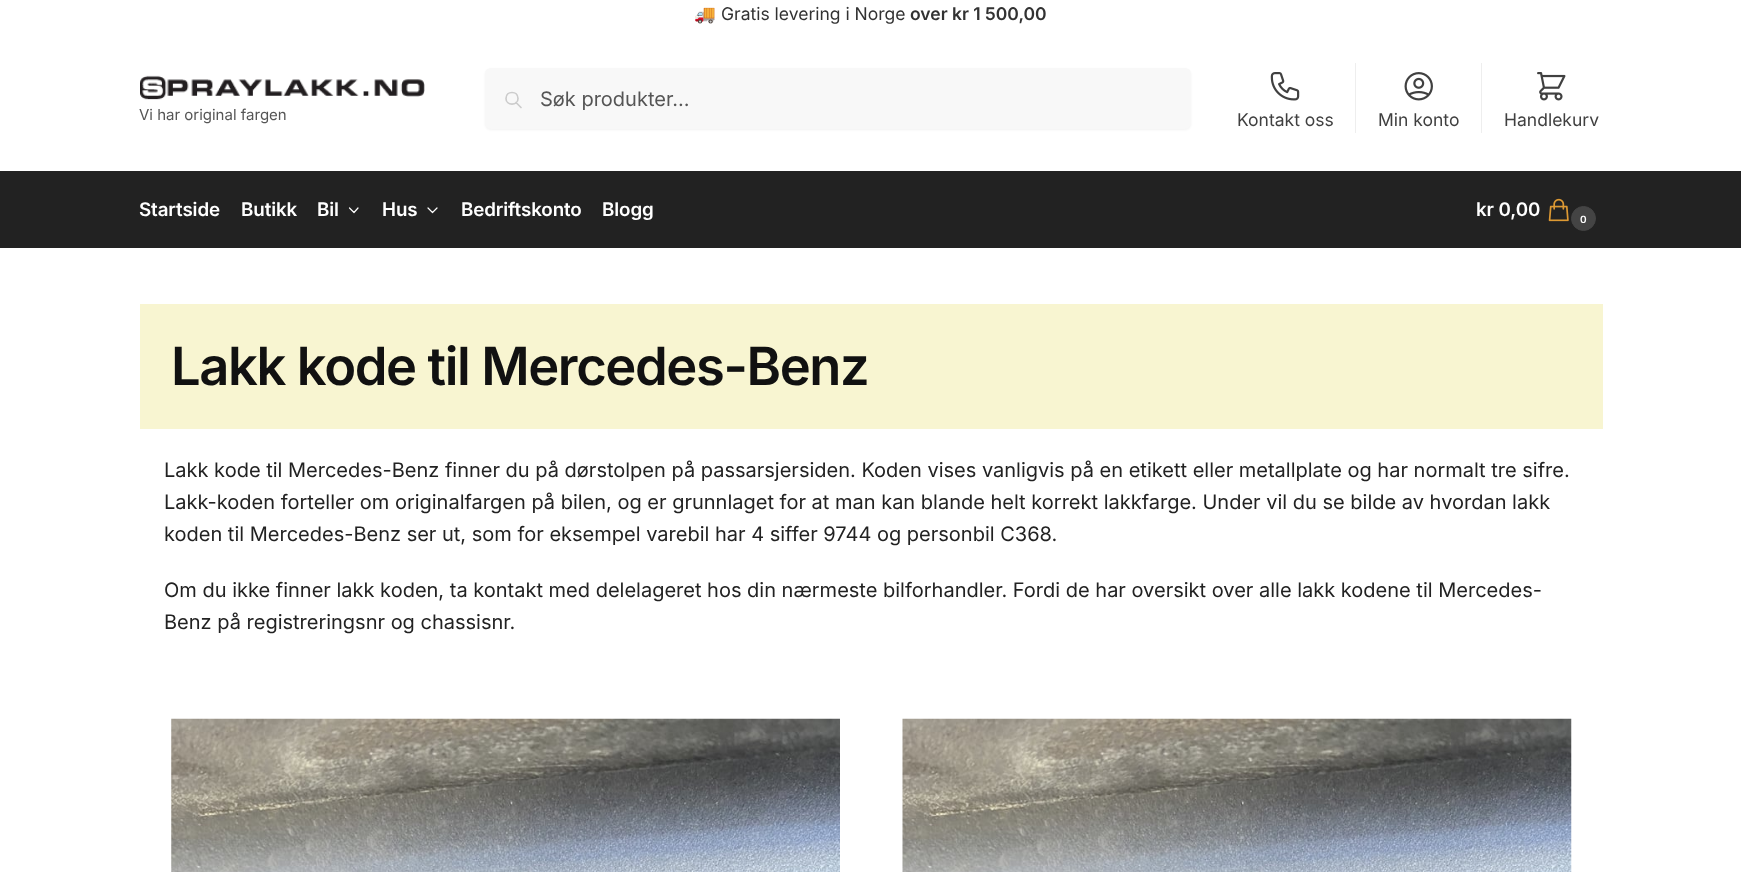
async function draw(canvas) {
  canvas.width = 1759
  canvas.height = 872
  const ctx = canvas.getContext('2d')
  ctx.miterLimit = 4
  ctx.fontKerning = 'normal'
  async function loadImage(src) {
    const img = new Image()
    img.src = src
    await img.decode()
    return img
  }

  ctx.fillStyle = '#fff'
  ctx.fillRect(0, 0, 1759, 872)
  ctx.font = '17.5px Noto Color Emoji'
  ctx.fillStyle = '#323232'
  ctx.fillText('🚚', 694, 20)
  ctx.font = '17.5px Inter'
  ctx.fillText('Gratis levering i Norge', 721, 20)
  ctx.font = '600 17.5px Inter'
  ctx.fillText('over kr 1 500,00', 910, 20)
  ctx.fillStyle = '#0000000d'
  ctx.filter = 'blur(1px)'
  ctx.beginPath()
  ctx.roundRect(485, 69, 706, 61, 6)
  ctx.fill()
  ctx.filter = 'none'
  ctx.fillStyle = '#f8f8f8'
  ctx.beginPath()
  ctx.roundRect(485, 68, 706, 61, 6)
  ctx.fill()
  ctx.beginPath()
  ctx.moveTo(521, 107.5)
  ctx.lineTo(516, 102.5)
  ctx.moveTo(518, 98.5)
  ctx.bezierCurveTo(518, 106, 506, 106, 506, 98.5)
  ctx.bezierCurveTo(506, 90.5, 518, 90.5, 518, 98.5)
  ctx.closePath()
  ctx.strokeStyle = '#ccc'
  ctx.lineWidth = 1.7
  ctx.lineCap = 'round'
  ctx.lineJoin = 'round'
  ctx.stroke()
  ctx.font = '20px Inter'
  ctx.fillStyle = '#555'
  ctx.fillText('Søk produkter...', 540, 106)
  ctx.drawImage(await loadImage('image0.png'), 140, 75, 285, 25)
  ctx.font = '15px Inter'
  ctx.fillText('Vi har original fargen', 139, 120)
  ctx.drawImage(await loadImage('image1.png'), 1270, 72, 30, 29)
  ctx.font = '17.5px Inter'
  ctx.fillStyle = '#404040'
  ctx.fillText('Kontakt oss', 1237, 126)
  ctx.fillStyle = '#eee'
  ctx.fillRect(1355, 63, 1, 70)
  ctx.drawImage(await loadImage('image2.png'), 1404, 72, 29, 29)
  ctx.fillStyle = '#404040'
  ctx.fillText('Min konto', 1378, 126)
  ctx.fillStyle = '#eee'
  ctx.fillRect(1481, 63, 1, 70)
  ctx.drawImage(await loadImage('image3.png'), 1537, 72, 29, 29)
  ctx.fillStyle = '#404040'
  ctx.fillText('Handlekurv', 1504, 126)
  ctx.fillStyle = '#222'
  ctx.fillRect(0, 171, 1741, 77)
  ctx.letterSpacing = '-0.1px'
  ctx.font = '600 18.75px Inter'
  ctx.fillStyle = '#fff'
  ctx.fillText('Startside', 139, 216)
  ctx.fillText('Butikk', 241, 216)
  ctx.fillText('Bil', 317, 216)
  ctx.beginPath()
  ctx.moveTo(358, 208)
  ctx.lineTo(354, 212.5)
  ctx.lineTo(349.5, 208)
  ctx.strokeStyle = '#fff'
  ctx.lineWidth = 1.2
  ctx.stroke()
  ctx.fillText('Hus', 382, 216)
  ctx.beginPath()
  ctx.moveTo(437, 208)
  ctx.lineTo(432.5, 212.5)
  ctx.lineTo(428, 208)
  ctx.stroke()
  ctx.fillText('Bedriftskonto', 461, 216)
  ctx.fillText('Blogg', 602, 216)
  ctx.fillText('kr 0,00', 1476, 216)
  ctx.drawImage(await loadImage('image4.png'), 1548, 198, 21, 24)
  ctx.fillStyle = '#444'
  ctx.beginPath()
  ctx.arc(1583.5, 218.5, 12, 0, 2 * Math.PI)
  ctx.fill()
  ctx.strokeStyle = '#444'
  ctx.lineWidth = 1
  ctx.stroke()
  ctx.font = '600 10px Inter'
  ctx.fillStyle = '#fff'
  ctx.fillText('0', 1580, 223)
  ctx.fillStyle = '#f8f5d1'
  ctx.fillRect(140, 304, 1463, 125)
  ctx.letterSpacing = '-1.4px'
  ctx.font = '600 52.5px Inter'
  ctx.fillStyle = '#111'
  ctx.fillText('Lakk kode til Mercedes-Benz', 171, 385)
  ctx.letterSpacing = '0px'
  ctx.font = '20px Inter'
  ctx.fillStyle = '#222'
  ctx.fillText('Lakk kode til Mercedes-Benz finner du på dørstolpen på passarsjersiden. Koden vises vanligvis på en etikett eller metallplate og har normalt tre sifre.', 164, 477)
  ctx.fillText('Lakk-koden forteller om originalfargen på bilen, og er grunnlaget for at man kan blande helt korrekt lakkfarge. Under vil du se bilde av hvordan lakk', 164, 509)
  ctx.fillText('koden til Mercedes-Benz ser ut, som for eksempel varebil har 4 siffer 9744 og personbil C368.', 164, 541)
  ctx.fillText('Om du ikke finner lakk koden, ta kontakt med delelageret hos din nærmeste bilforhandler. Fordi de har oversikt over alle lakk kodene til Mercedes-', 164, 597)
  ctx.fillText('Benz på registreringsnr og chassisnr.', 164, 629)
  ctx.drawImage(await loadImage('image5.png'), 171, 718, 669, 154)
  ctx.drawImage(await loadImage('image6.png'), 902, 718, 670, 154)
}

draw(document.querySelector('canvas'))
